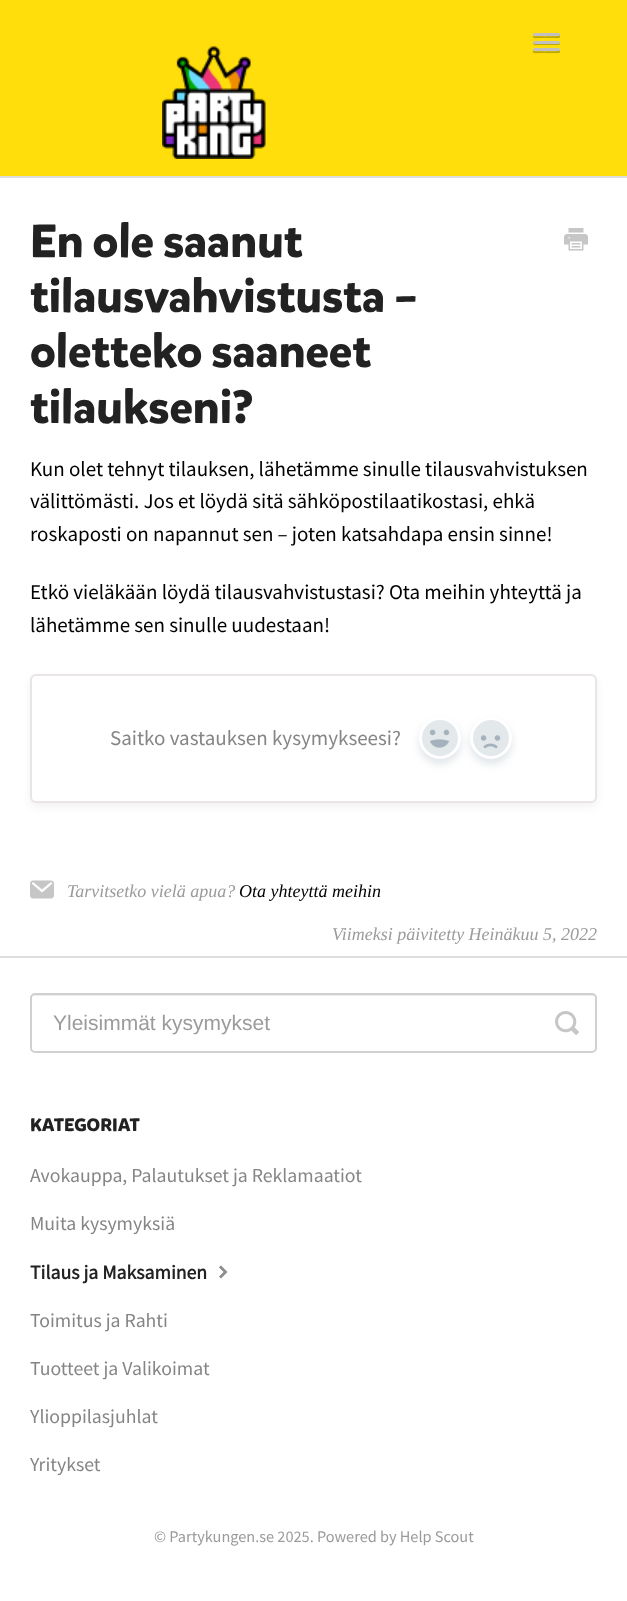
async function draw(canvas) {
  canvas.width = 627
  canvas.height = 1601
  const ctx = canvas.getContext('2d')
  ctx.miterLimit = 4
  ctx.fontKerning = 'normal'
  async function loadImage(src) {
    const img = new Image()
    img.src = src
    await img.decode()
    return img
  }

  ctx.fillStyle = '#fff'
  ctx.fillRect(0, 0, 627, 1601)
  ctx.fillStyle = '#ffde0c'
  ctx.fillRect(0, 0, 627, 176)
  ctx.fillStyle = '#bfa709'
  ctx.beginPath()
  ctx.moveTo(533, 36)
  ctx.bezierCurveTo(531.5, 39, 538.5, 38, 538.5, 38)
  ctx.lineTo(559, 38)
  ctx.bezierCurveTo(560, 37.5, 560.5, 36, 559.5, 35)
  ctx.lineTo(558, 36)
  ctx.bezierCurveTo(556, 36.5, 534, 36.5, 533, 36)
  ctx.closePath()
  ctx.fill()
  ctx.fillStyle = '#c0c0c0'
  ctx.beginPath()
  ctx.roundRect(533, 33, 27, 3, 1.5)
  ctx.fill()
  ctx.fillStyle = '#bfa709'
  ctx.beginPath()
  ctx.moveTo(533, 43)
  ctx.bezierCurveTo(532.5, 46, 538, 45, 538.5, 45)
  ctx.lineTo(558.5, 45)
  ctx.bezierCurveTo(560, 45, 560.5, 43, 559.5, 42.5)
  ctx.lineTo(558.5, 43.5)
  ctx.bezierCurveTo(557, 44, 533.5, 43.5, 533, 43)
  ctx.closePath()
  ctx.fill()
  ctx.fillStyle = '#c0c0c0'
  ctx.beginPath()
  ctx.roundRect(533, 41, 27, 3, 1.5)
  ctx.fill()
  ctx.fillStyle = '#bfa709'
  ctx.beginPath()
  ctx.moveTo(533, 51)
  ctx.bezierCurveTo(531.5, 54, 538.5, 53, 538.5, 53)
  ctx.lineTo(559, 53)
  ctx.bezierCurveTo(560, 52.5, 560.5, 51, 559.5, 50)
  ctx.lineTo(558, 51)
  ctx.bezierCurveTo(556, 51.5, 534, 51.5, 533, 51)
  ctx.closePath()
  ctx.fill()
  ctx.fillStyle = '#c0c0c0'
  ctx.beginPath()
  ctx.roundRect(533, 48, 27, 3, 1.5)
  ctx.fill()
  ctx.drawImage(await loadImage('image0.png'), 162, 46, 104, 113)
  ctx.fillStyle = '#dedede'
  ctx.fillRect(0, 176, 627, 2)
  ctx.fillRect(0, 956, 627, 2)
  ctx.font = 'bold 46.25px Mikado'
  ctx.fillStyle = '#222'
  ctx.fillText('En ole saanut', 30, 257)
  ctx.fillText('tilausvahvistusta –', 30, 312)
  ctx.fillText('oletteko saaneet', 30, 367)
  ctx.fillText('tilaukseni?', 30, 423)
  ctx.drawImage(await loadImage('image1.png'), 564, 228, 24, 23)
  ctx.font = '21px Source Sans Pro'
  ctx.fillStyle = '#000'
  ctx.fillText('Kun olet tehnyt tilauksen, lähetämme sinulle tilausvahvistuksen', 30, 476)
  ctx.fillText('välittömästi. Jos et löydä sitä sähköpostilaatikostasi, ehkä', 30, 508)
  ctx.fillText('roskaposti on napannut sen – joten katsahdapa ensin sinne!', 30, 541)
  ctx.fillText('Etkö vieläkään löydä tilausvahvistustasi? Ota meihin yhteyttä ja', 30, 599)
  ctx.fillText('lähetämme sen sinulle uudestaan!', 30, 632)
  ctx.fillStyle = '#0000000d'
  ctx.filter = 'blur(4.5px)'
  ctx.beginPath()
  ctx.roundRect(30, 678, 567, 129, 6)
  ctx.fill()
  ctx.filter = 'none'
  ctx.fillStyle = '#fff'
  ctx.beginPath()
  ctx.roundRect(31, 675, 565, 127, 5)
  ctx.fill()
  ctx.strokeStyle = '#e9e5e5'
  ctx.lineWidth = 2
  ctx.stroke()
  ctx.fillStyle = '#858585'
  ctx.fillText('Saitko vastauksen kysymykseesi?', 110, 745)
  ctx.fillStyle = '#c1cbd480'
  ctx.filter = 'blur(4.5px)'
  ctx.beginPath()
  ctx.roundRect(419, 722, 42, 42, 21)
  ctx.fill()
  ctx.filter = 'none'
  ctx.fillStyle = '#e3e8eb'
  ctx.beginPath()
  ctx.arc(440, 738, 19.5, 0, 2 * Math.PI)
  ctx.fill()
  ctx.strokeStyle = '#fff'
  ctx.lineWidth = 3
  ctx.stroke()
  ctx.drawImage(await loadImage('image2.png'), 429, 729, 21, 19)
  ctx.fillStyle = '#c1cbd480'
  ctx.filter = 'blur(4.5px)'
  ctx.beginPath()
  ctx.roundRect(470, 722, 42, 42, 21)
  ctx.fill()
  ctx.filter = 'none'
  ctx.fillStyle = '#e3e8eb'
  ctx.beginPath()
  ctx.arc(491, 738, 19.5, 0, 2 * Math.PI)
  ctx.fill()
  ctx.stroke()
  ctx.drawImage(await loadImage('image3.png'), 480, 735, 21, 14)
  ctx.drawImage(await loadImage('image4.png'), 30, 880, 24, 19)
  ctx.font = 'italic 18px Liberation Serif'
  ctx.fillStyle = '#9b9b9b'
  ctx.fillText('Tarvitsetko vielä apua?', 67, 897)
  ctx.fillStyle = '#000'
  ctx.fillText('Ota yhteyttä meihin', 239, 897)
  ctx.fillStyle = '#9b9b9b'
  ctx.fillText('Viimeksi päivitetty Heinäkuu 5, 2022', 332, 940)
  ctx.fillStyle = '#ececec'
  ctx.beginPath()
  ctx.moveTo(34, 996)
  ctx.lineTo(592, 996)
  ctx.bezierCurveTo(594, 996, 596, 997, 596, 999)
  ctx.lineTo(596, 998)
  ctx.bezierCurveTo(596, 996, 595, 995, 593, 995)
  ctx.lineTo(35, 995)
  ctx.bezierCurveTo(33, 995, 32, 996, 32, 998)
  ctx.lineTo(32, 999)
  ctx.bezierCurveTo(32, 997, 33, 996, 34, 996)
  ctx.closePath()
  ctx.fill()
  ctx.beginPath()
  ctx.roundRect(31, 994, 565, 58, 4)
  ctx.strokeStyle = '#d0d0d0'
  ctx.lineWidth = 2
  ctx.stroke()
  ctx.font = '21px Liberation Sans'
  ctx.fillStyle = '#9b9b9b'
  ctx.fillText('Yleisimmät kysymykset', 53, 1030)
  ctx.drawImage(await loadImage('image5.png'), 555, 1011, 24, 24)
  ctx.font = 'bold 18px Mikado'
  ctx.fillStyle = '#222'
  ctx.fillText('KATEGORIAT', 30, 1131)
  ctx.font = '19.75px Source Sans Pro'
  ctx.fillStyle = '#858585'
  ctx.fillText('Avokauppa, Palautukset ja Reklamaatiot', 30, 1182)
  ctx.fillText('Muita kysymyksiä', 30, 1230)
  ctx.font = 'bold 19.75px Source Sans Pro'
  ctx.fillStyle = '#222'
  ctx.fillText('Tilaus ja Maksaminen', 30, 1279)
  ctx.drawImage(await loadImage('image6.png'), 219, 1265, 9, 14)
  ctx.font = '19.75px Source Sans Pro'
  ctx.fillStyle = '#858585'
  ctx.fillText('Toimitus ja Rahti', 30, 1327)
  ctx.fillText('Tuotteet ja Valikoimat', 30, 1375)
  ctx.fillText('Ylioppilasjuhlat', 30, 1423)
  ctx.fillText('Yritykset', 30, 1471)
  ctx.font = '16.25px Source Sans Pro'
  ctx.fillStyle = '#9b9b9b'
  ctx.fillText('© Partykungen.se 2025. Powered by Help Scout', 154, 1542)
}

draw(document.querySelector('canvas'))
